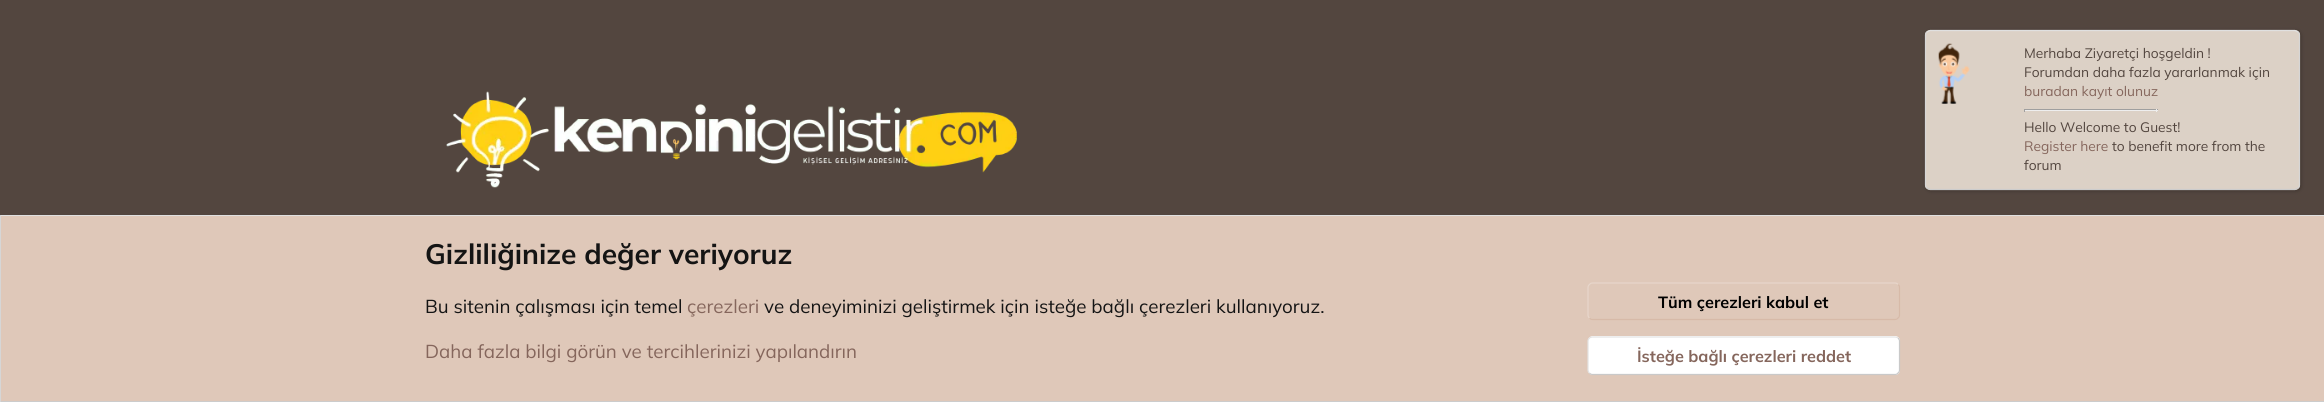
#include <cairo/cairo.h>
#include <math.h>
#include <stddef.h>

static cairo_t *cr;

static void use_color(int r, int g, int b) {
  cairo_set_source_rgb(cr, r / 255.0, g / 255.0, b / 255.0);
}

static void text(double x, double y, const char *s, const char *family, double size, int italic, int bold, int r, int g, int b) {
  cairo_select_font_face(cr, family, italic ? CAIRO_FONT_SLANT_ITALIC : CAIRO_FONT_SLANT_NORMAL,
    bold ? CAIRO_FONT_WEIGHT_BOLD : CAIRO_FONT_WEIGHT_NORMAL);
  cairo_set_font_size(cr, size);
  use_color(r, g, b);
  cairo_move_to(cr, x, y);
  cairo_show_text(cr, s);
}

static void box(double x, double y, double w, double h, int r, int g, int b) {
  use_color(r, g, b);
  cairo_rectangle(cr, x, y, w, h);
  cairo_fill(cr);
}

static void round_rect(double x, double y, double w, double h, double r) {
  cairo_new_sub_path(cr);
  cairo_arc(cr, x + w - r, y + h - r, r, 0, M_PI / 2);
  cairo_arc(cr, x + r, y + h - r, r, M_PI / 2, M_PI);
  cairo_arc(cr, x + r, y + r, r, M_PI, 1.5 * M_PI);
  cairo_arc(cr, x + w - r, y + r, r, 1.5 * M_PI, 2 * M_PI);
  cairo_close_path(cr);
}

static void shadow(double x, double y, double w, double h, double r, double blur, double alpha) {
  cairo_push_group_with_content(cr, CAIRO_CONTENT_ALPHA);
  cairo_set_operator(cr, CAIRO_OPERATOR_SOURCE);
  for (int i = 15; i >= -15 && fmin(w, h) + blur * i / 3 > 0; i -= 2) {
    double e = blur * i / 6;
    cairo_set_source_rgba(cr, 0, 0, 0, alpha * erfc((i - 1) / 8.5) / 2);
    round_rect(x - e, y - e, w + 2 * e, h + 2 * e, fmax(0, fmin(r + e + blur * .6, fmin(w, h) / 2 + e)));
    cairo_fill(cr);
  }
  cairo_pattern_t *soft = cairo_pop_group(cr);
  cairo_mask(cr, soft);
  cairo_pattern_destroy(soft);
}

static void picture(const char *path, double x, double y, double w, double h) {
  cairo_surface_t *image = cairo_image_surface_create_from_png(path);
  cairo_save(cr);
  cairo_set_source_surface(cr, image, x, y);
  cairo_rectangle(cr, x, y, w, h);
  cairo_fill(cr);
  cairo_restore(cr);
  cairo_surface_destroy(image);
}

static void draw(void) {
  use_color(83, 70, 63);
  cairo_paint(cr);
  cairo_save(cr);
  cairo_set_fill_rule(cr, CAIRO_FILL_RULE_EVEN_ODD);
  cairo_new_path(cr);
  cairo_move_to(cr, 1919, 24);
  cairo_line_to(cr, 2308, 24);
  cairo_line_to(cr, 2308, 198);
  cairo_line_to(cr, 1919, 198);
  cairo_close_path(cr);
  cairo_move_to(cr, 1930, 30);
  cairo_line_to(cr, 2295, 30);
  cairo_curve_to(cr, 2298, 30, 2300, 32, 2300, 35);
  cairo_line_to(cr, 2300, 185);
  cairo_curve_to(cr, 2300, 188, 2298, 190, 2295, 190);
  cairo_line_to(cr, 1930, 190);
  cairo_curve_to(cr, 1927, 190, 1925, 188, 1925, 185);
  cairo_line_to(cr, 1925, 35);
  cairo_curve_to(cr, 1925, 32, 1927, 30, 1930, 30);
  cairo_close_path(cr);
  cairo_clip(cr);
  use_color(0, 0, 0);
  shadow(1926, 31, 375, 160, 5, 2, 0.25);
  cairo_restore(cr);
  cairo_set_source_rgba(cr, 0.996, 0.957, 0.906, 0.8);
  round_rect(1925, 30, 375, 160, 5);
  cairo_fill(cr);
  cairo_new_path(cr);
  cairo_move_to(cr, 1927, 32);
  cairo_line_to(cr, 1930, 30.5);
  cairo_line_to(cr, 2295, 30.5);
  cairo_line_to(cr, 2298, 32);
  use_color(224, 224, 224);
  cairo_set_line_width(cr, 1.2);
  cairo_stroke(cr);
  cairo_new_path(cr);
  cairo_move_to(cr, 2298, 32);
  cairo_curve_to(cr, 2299, 32.5, 2299.5, 34, 2299.5, 35);
  cairo_line_to(cr, 2299.5, 185);
  cairo_curve_to(cr, 2299.5, 186, 2299, 187.5, 2298, 188);
  use_color(214, 214, 214);
  cairo_stroke(cr);
  cairo_new_path(cr);
  cairo_move_to(cr, 2298, 188);
  cairo_line_to(cr, 2295, 189.5);
  cairo_line_to(cr, 1930, 189.5);
  cairo_line_to(cr, 1927, 188);
  use_color(204, 204, 204);
  cairo_stroke(cr);
  cairo_new_path(cr);
  cairo_move_to(cr, 1927, 188);
  cairo_curve_to(cr, 1926, 187.5, 1925.5, 186, 1925.5, 185);
  cairo_line_to(cr, 1925.5, 35);
  cairo_curve_to(cr, 1925.5, 34, 1926, 32.5, 1927, 32);
  use_color(214, 214, 214);
  cairo_stroke(cr);
  picture("img_01.png", 1938, 43, 32, 61);
  box(2024, 109, 134, 1, 159, 159, 159);
  box(2156, 109, 1, 3, 238, 238, 238);
  box(2024, 110, 134, 1, 238, 238, 238);
  box(2024, 109, 1, 3, 159, 159, 159);
  box(1, 216, 2323, 185, 223, 200, 185);
  box(0, 215, 2324, 1, 224, 224, 224);
  box(0, 401, 2324, 1, 204, 204, 204);
  box(0, 215, 1, 187, 214, 214, 214);
  cairo_new_path(cr);
  cairo_move_to(cr, 1898, 284.5);
  cairo_curve_to(cr, 1899, 285, 1899.5, 286.5, 1899.5, 287.5);
  cairo_line_to(cr, 1899.5, 315);
  cairo_curve_to(cr, 1899.5, 316, 1899, 317.5, 1898, 318);
  cairo_curve_to(cr, 1897.5, 319, 1896, 319.5, 1895, 319.5);
  cairo_line_to(cr, 1592.5, 319.5);
  cairo_curve_to(cr, 1591.5, 319.5, 1590, 319, 1589.5, 318);
  use_color(215, 186, 168);
  cairo_stroke(cr);
  cairo_new_path(cr);
  cairo_move_to(cr, 1589.5, 318);
  cairo_curve_to(cr, 1588.5, 317.5, 1588, 316, 1588, 315);
  cairo_line_to(cr, 1588, 287.5);
  cairo_curve_to(cr, 1588, 286.5, 1588.5, 285, 1589.5, 284.5);
  cairo_curve_to(cr, 1590, 283.5, 1591.5, 283, 1592.5, 283);
  cairo_line_to(cr, 1895, 283);
  cairo_curve_to(cr, 1896, 283, 1897.5, 283.5, 1898, 284.5);
  use_color(231, 214, 203);
  cairo_stroke(cr);
  use_color(255, 255, 255);
  round_rect(1588, 336, 312, 39, 5);
  cairo_fill(cr);
  cairo_new_path(cr);
  cairo_move_to(cr, 1898, 338);
  cairo_curve_to(cr, 1899, 339, 1899.5, 340, 1899.5, 341);
  cairo_line_to(cr, 1899.5, 370);
  cairo_curve_to(cr, 1899.5, 371, 1899, 372.5, 1898, 373);
  cairo_curve_to(cr, 1897.5, 374, 1896, 374.5, 1895, 374.5);
  cairo_line_to(cr, 1592.5, 374.5);
  cairo_curve_to(cr, 1591.5, 374.5, 1590, 374, 1589.5, 373);
  use_color(201, 201, 201);
  cairo_stroke(cr);
  cairo_new_path(cr);
  cairo_move_to(cr, 1589.5, 373);
  cairo_curve_to(cr, 1588.5, 372.5, 1588, 371, 1588, 370);
  cairo_line_to(cr, 1588, 341);
  cairo_curve_to(cr, 1588, 340, 1588.5, 339, 1589.5, 338);
  cairo_curve_to(cr, 1590, 337.5, 1591.5, 337, 1592.5, 337);
  cairo_line_to(cr, 1895, 337);
  cairo_curve_to(cr, 1896, 337, 1897.5, 337.5, 1898, 338);
  use_color(227, 227, 227);
  cairo_stroke(cr);
  picture("img_02.png", 446, 91, 571, 97);
  text(2024, 58, "Merhaba Ziyaretçi hoşgeldin !", "Mulish", 13.75, 0, 0, 83, 70, 63);
  text(2024, 77, "Forumdan daha fazla yararlanmak için", "Mulish", 13.75, 0, 0, 83, 70, 63);
  text(2024, 96, "buradan kayıt olunuz", "Mulish", 13.75, 0, 0, 133, 102, 92);
  text(2024, 132, "Hello Welcome to Guest!", "Mulish", 13.75, 0, 0, 83, 70, 63);
  text(2024, 151, "Register here", "Mulish", 13.75, 0, 0, 133, 102, 92);
  text(2112, 151, "to benefit more from the", "Mulish", 13.75, 0, 0, 83, 70, 63);
  text(2024, 170, "forum", "Mulish", 13.75, 0, 0, 83, 70, 63);
  text(425, 264, "Gizliliğinize değer veriyoruz", "Mulish", 28.1, 0, 1, 20, 20, 20);
  text(425, 313, "Bu sitenin çalışması için temel", "Mulish", 18.75, 0, 0, 20, 20, 20);
  text(687, 313, "çerezleri", "Mulish", 18.75, 0, 0, 133, 102, 92);
  text(764, 313, "ve deneyiminizi geliştirmek için isteğe bağlı çerezleri kullanıyoruz.", "Mulish", 18.75, 0, 0, 20, 20, 20);
  text(425, 358, "Daha fazla bilgi görün ve tercihlerinizi yapılandırın", "Mulish", 18.75, 0, 0, 133, 102, 92);
  text(1658, 308, "Tüm çerezleri kabul et", "Mulish", 16.25, 0, 1, 0, 0, 0);
  text(1637, 362, "İsteğe bağlı çerezleri reddet", "Mulish", 16.25, 0, 1, 133, 102, 92);
}

int main(void) {
  cairo_surface_t *surface = cairo_image_surface_create(CAIRO_FORMAT_RGB24, 2324, 402);
  cr = cairo_create(surface);
  cairo_font_options_t *options = cairo_font_options_create();
  cairo_font_options_set_hint_metrics(options, CAIRO_HINT_METRICS_OFF);
  cairo_font_options_set_hint_style(options, CAIRO_HINT_STYLE_NONE);
  cairo_set_font_options(cr, options);
  cairo_set_miter_limit(cr, 4);
  draw();
  cairo_surface_write_to_png(surface, "out.png");
  cairo_font_options_destroy(options);
  cairo_destroy(cr);
  cairo_surface_destroy(surface);
  return 0;
}
